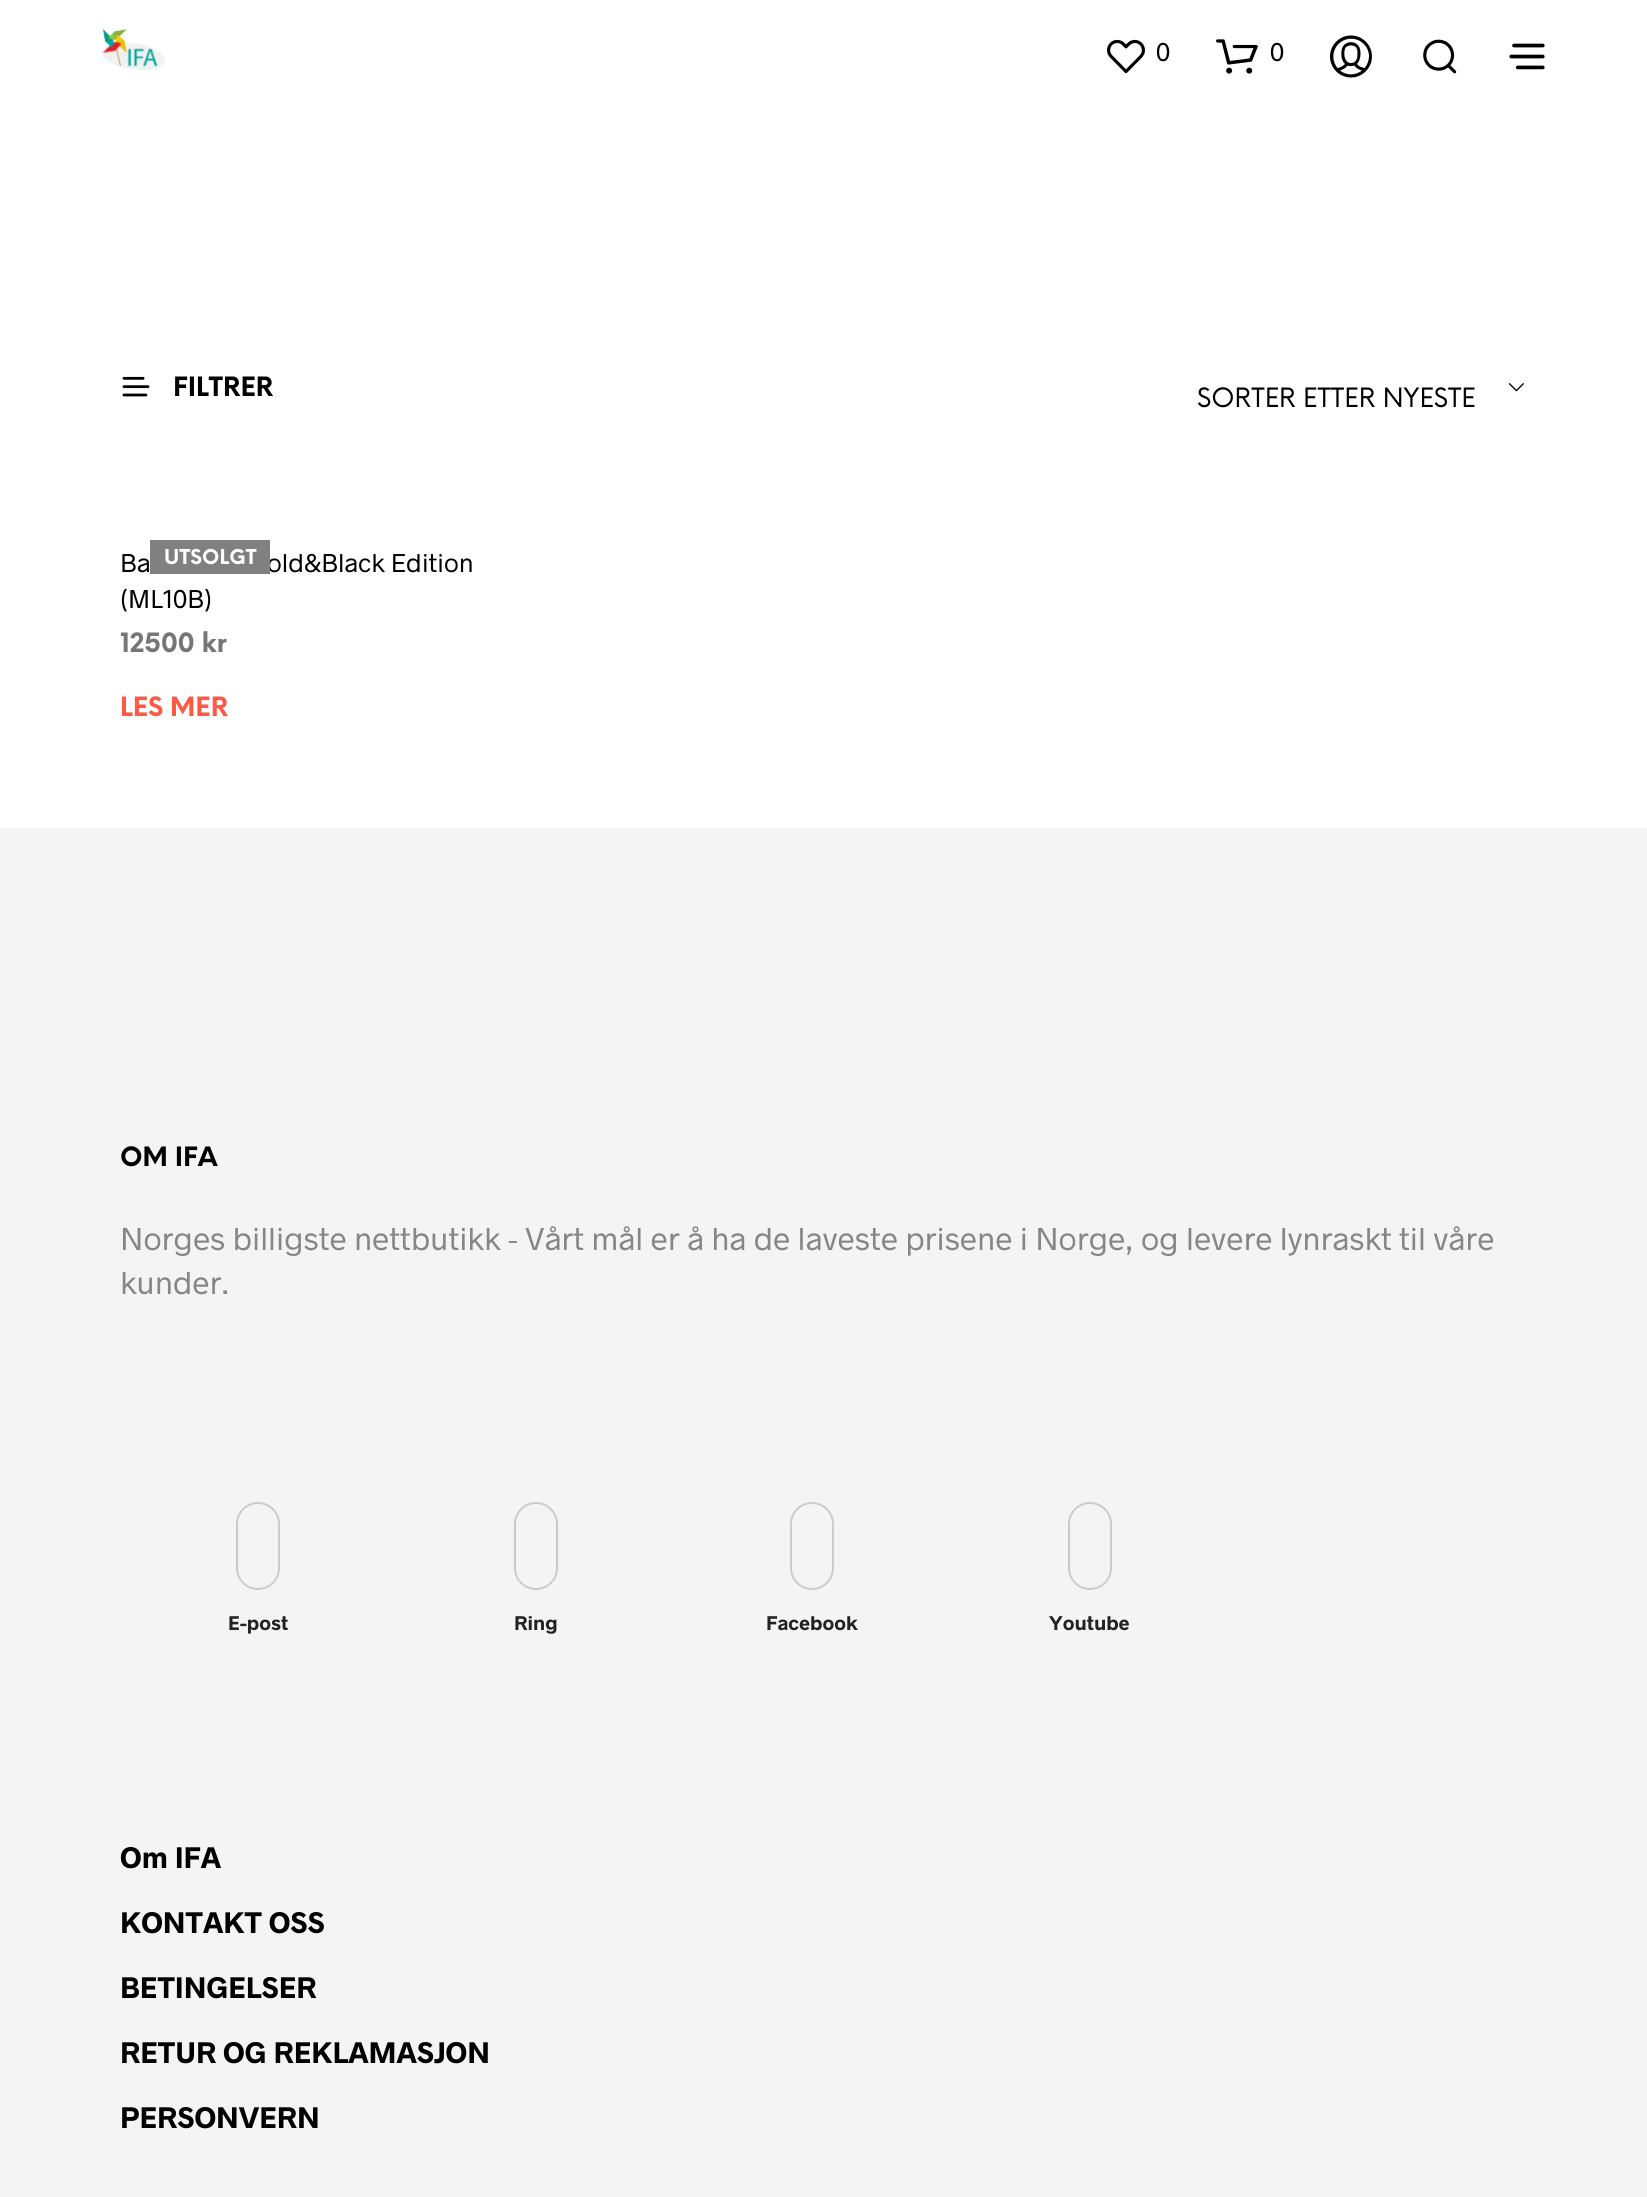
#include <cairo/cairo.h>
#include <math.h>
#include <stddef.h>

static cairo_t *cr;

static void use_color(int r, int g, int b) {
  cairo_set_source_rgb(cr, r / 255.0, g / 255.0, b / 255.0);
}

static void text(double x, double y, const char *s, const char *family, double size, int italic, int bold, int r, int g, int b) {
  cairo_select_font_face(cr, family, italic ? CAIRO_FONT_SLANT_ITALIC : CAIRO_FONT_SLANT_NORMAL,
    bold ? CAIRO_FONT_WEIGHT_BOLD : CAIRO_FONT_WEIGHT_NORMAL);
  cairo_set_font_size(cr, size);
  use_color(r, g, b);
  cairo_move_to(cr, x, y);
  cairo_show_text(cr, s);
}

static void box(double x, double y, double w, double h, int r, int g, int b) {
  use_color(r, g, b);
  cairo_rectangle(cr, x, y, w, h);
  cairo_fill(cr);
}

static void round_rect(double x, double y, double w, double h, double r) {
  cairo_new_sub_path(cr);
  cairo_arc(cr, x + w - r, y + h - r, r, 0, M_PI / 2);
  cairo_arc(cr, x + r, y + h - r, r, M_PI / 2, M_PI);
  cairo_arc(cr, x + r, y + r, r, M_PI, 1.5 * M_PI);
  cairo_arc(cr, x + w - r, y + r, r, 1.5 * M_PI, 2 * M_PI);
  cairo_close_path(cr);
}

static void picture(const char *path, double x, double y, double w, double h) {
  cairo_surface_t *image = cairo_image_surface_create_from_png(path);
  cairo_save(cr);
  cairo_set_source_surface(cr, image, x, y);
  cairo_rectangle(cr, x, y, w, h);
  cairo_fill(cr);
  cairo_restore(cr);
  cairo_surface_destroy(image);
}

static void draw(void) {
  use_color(255, 255, 255);
  cairo_paint(cr);
  picture("img_01.png", 102, 29, 64, 42);
  picture("img_02.png", 1107, 39, 38, 35);
  picture("img_03.png", 1216, 39, 42, 35);
  picture("img_04.png", 1330, 35, 42, 43);
  picture("img_05.png", 1423, 39, 34, 35);
  picture("img_06.png", 1509, 43, 36, 27);
  picture("img_07.png", 122, 376, 28, 21);
  picture("img_08.png", 1508, 383, 16, 9);
  box(0, 828, 1647, 1369, 244, 244, 244);
  round_rect(237, 1503, 42, 86, 21);
  use_color(204, 204, 204);
  cairo_stroke(cr);
  round_rect(515, 1503, 42, 86, 21);
  cairo_stroke(cr);
  round_rect(791, 1503, 42, 86, 21);
  cairo_stroke(cr);
  round_rect(1069, 1503, 42, 86, 21);
  cairo_stroke(cr);
  text(1156, 61, "0", "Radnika", 26, 0, 0, 0, 0, 0);
  text(1270, 61, "0", "Radnika", 26, 0, 0, 0, 0, 0);
  text(173, 396, "FILTRER", "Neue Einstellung", 26, 0, 1, 0, 0, 0);
  text(1197, 407, "SORTER ETTER NYESTE", "Neue Einstellung", 26, 0, 0, 0, 0, 0);
  text(120, 572, "Ba", "Radnika", 26, 0, 0, 0, 0, 0);
  text(267, 572, "old&Black Edition", "Radnika", 26, 0, 0, 0, 0, 0);
  box(150, 540, 120, 34, 128, 128, 128);
  text(164, 564, "UTSOLGT", "Neue Einstellung", 20, 0, 1, 255, 255, 255);
  text(120, 608, "(ML10B)", "Radnika", 26, 0, 0, 0, 0, 0);
  text(120, 652, "12500 kr", "Neue Einstellung", 26, 0, 1, 118, 118, 118);
  text(120, 716, "LES MER", "Neue Einstellung", 26, 0, 1, 255, 89, 67);
  text(120, 1166, "OM IFA", "Neue Einstellung", 26, 0, 1, 0, 0, 0);
  text(120, 1250, "Norges billigste nettbutikk - Vårt mål er å ha de laveste prisene i Norge, og levere lynraskt til våre", "Radnika", 32, 0, 0, 134, 134, 134);
  text(120, 1294, "kunder.", "Radnika", 32, 0, 0, 134, 134, 134);
  text(228, 1630, "E-post", "Radnika", 20, 0, 1, 34, 34, 34);
  text(514, 1630, "Ring", "Radnika", 20, 0, 1, 34, 34, 34);
  text(766, 1630, "Facebook", "Radnika", 20, 0, 1, 34, 34, 34);
  text(1049, 1630, "Youtube", "Radnika", 20, 0, 1, 34, 34, 34);
  text(120, 1868, "Om IFA", "Radnika", 30, 0, 1, 0, 0, 0);
  text(120, 1933, "KONTAKT OSS", "Radnika", 30, 0, 1, 0, 0, 0);
  text(120, 1998, "BETINGELSER", "Radnika", 30, 0, 1, 0, 0, 0);
  text(120, 2063, "RETUR OG REKLAMASJON", "Radnika", 30, 0, 1, 0, 0, 0);
  text(120, 2128, "PERSONVERN", "Radnika", 30, 0, 1, 0, 0, 0);
}

int main(void) {
  cairo_surface_t *surface = cairo_image_surface_create(CAIRO_FORMAT_RGB24, 1647, 2197);
  cr = cairo_create(surface);
  cairo_font_options_t *options = cairo_font_options_create();
  cairo_font_options_set_hint_metrics(options, CAIRO_HINT_METRICS_OFF);
  cairo_font_options_set_hint_style(options, CAIRO_HINT_STYLE_NONE);
  cairo_set_font_options(cr, options);
  cairo_set_miter_limit(cr, 4);
  draw();
  cairo_surface_write_to_png(surface, "out.png");
  cairo_font_options_destroy(options);
  cairo_destroy(cr);
  cairo_surface_destroy(surface);
  return 0;
}
